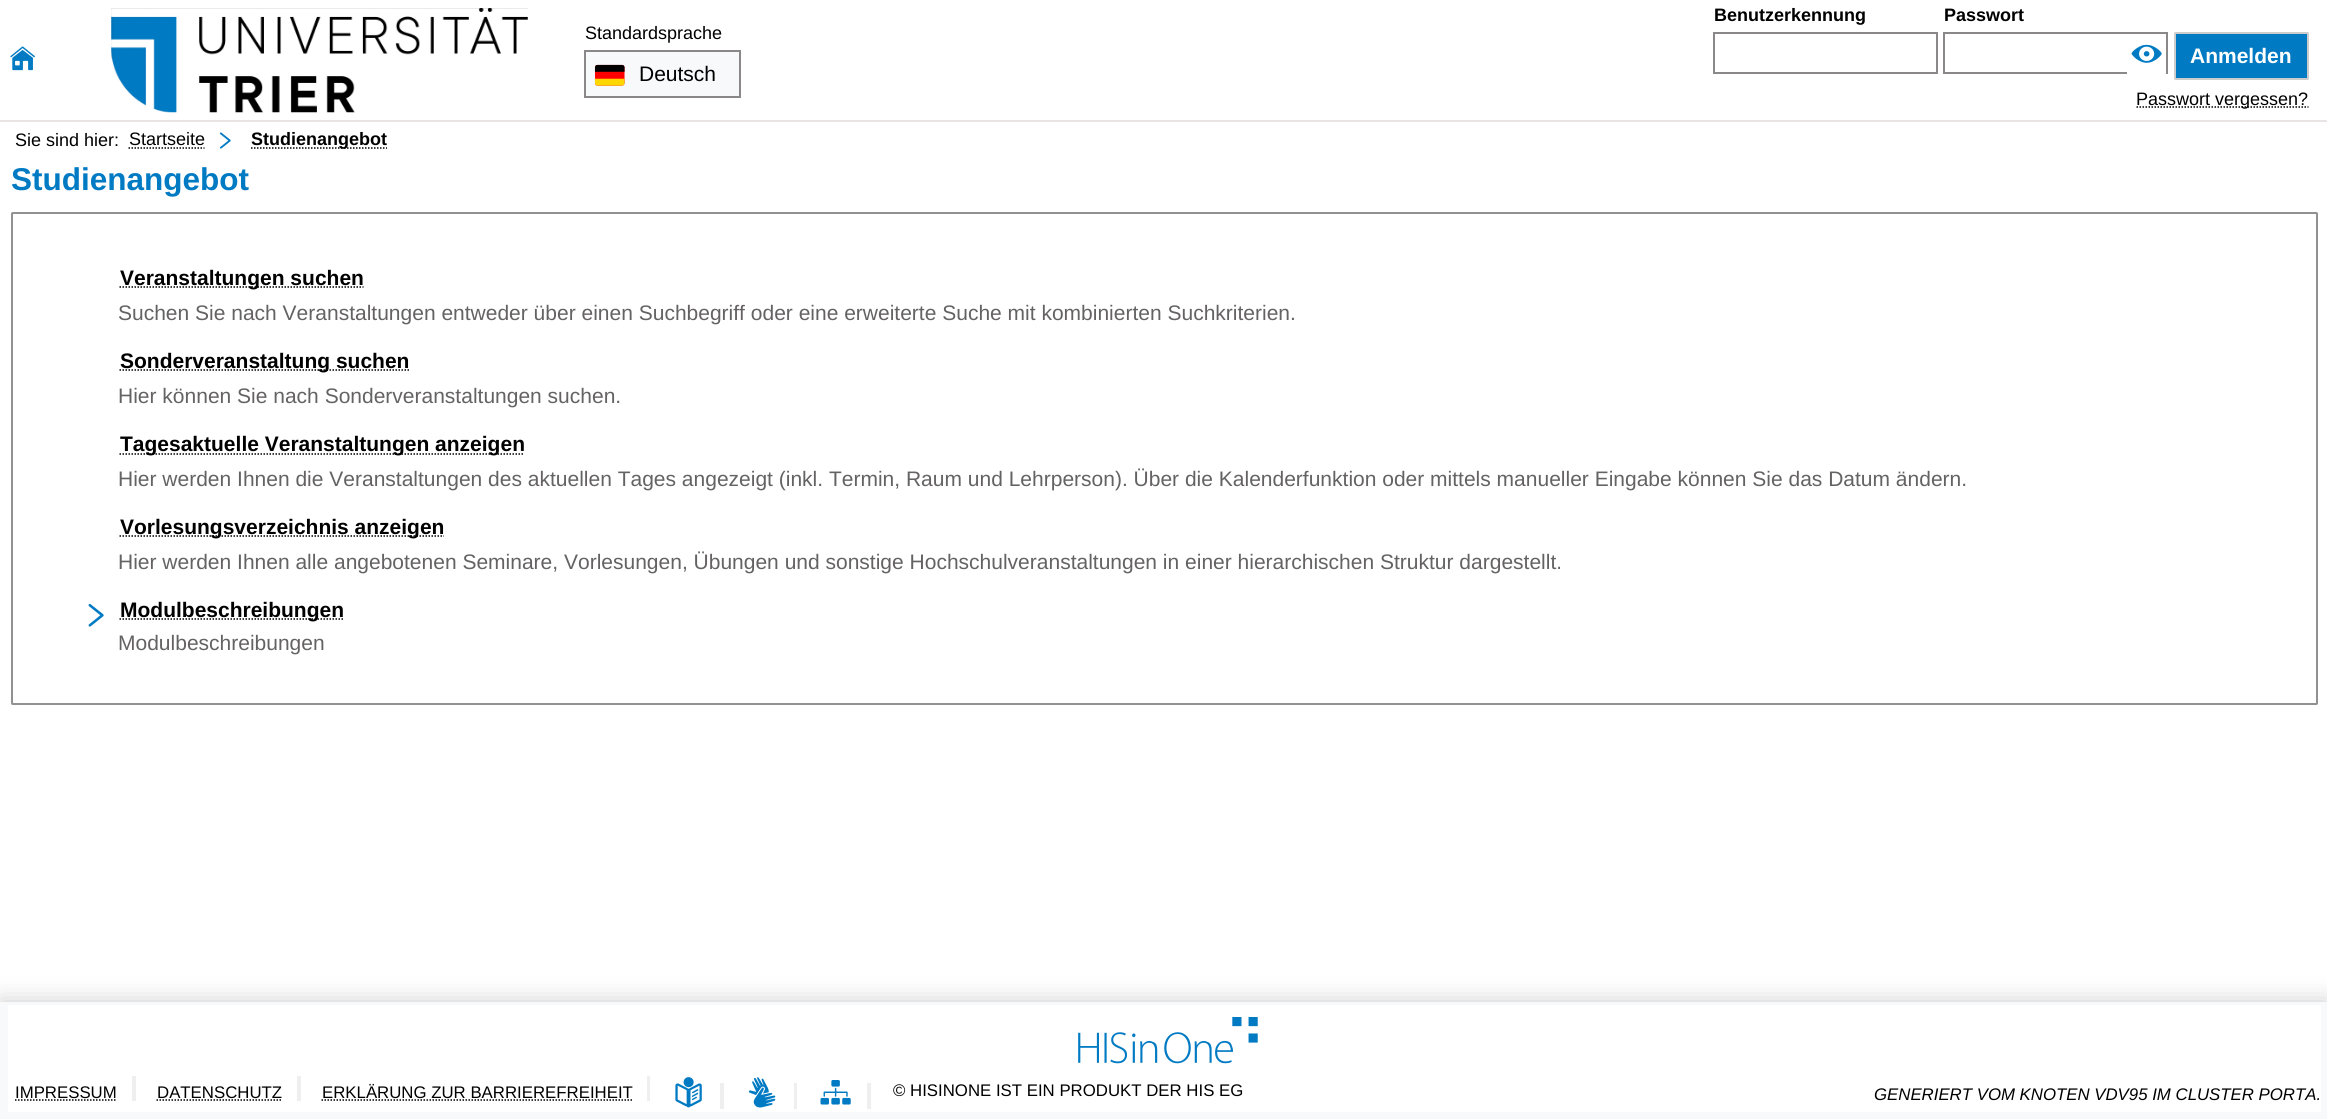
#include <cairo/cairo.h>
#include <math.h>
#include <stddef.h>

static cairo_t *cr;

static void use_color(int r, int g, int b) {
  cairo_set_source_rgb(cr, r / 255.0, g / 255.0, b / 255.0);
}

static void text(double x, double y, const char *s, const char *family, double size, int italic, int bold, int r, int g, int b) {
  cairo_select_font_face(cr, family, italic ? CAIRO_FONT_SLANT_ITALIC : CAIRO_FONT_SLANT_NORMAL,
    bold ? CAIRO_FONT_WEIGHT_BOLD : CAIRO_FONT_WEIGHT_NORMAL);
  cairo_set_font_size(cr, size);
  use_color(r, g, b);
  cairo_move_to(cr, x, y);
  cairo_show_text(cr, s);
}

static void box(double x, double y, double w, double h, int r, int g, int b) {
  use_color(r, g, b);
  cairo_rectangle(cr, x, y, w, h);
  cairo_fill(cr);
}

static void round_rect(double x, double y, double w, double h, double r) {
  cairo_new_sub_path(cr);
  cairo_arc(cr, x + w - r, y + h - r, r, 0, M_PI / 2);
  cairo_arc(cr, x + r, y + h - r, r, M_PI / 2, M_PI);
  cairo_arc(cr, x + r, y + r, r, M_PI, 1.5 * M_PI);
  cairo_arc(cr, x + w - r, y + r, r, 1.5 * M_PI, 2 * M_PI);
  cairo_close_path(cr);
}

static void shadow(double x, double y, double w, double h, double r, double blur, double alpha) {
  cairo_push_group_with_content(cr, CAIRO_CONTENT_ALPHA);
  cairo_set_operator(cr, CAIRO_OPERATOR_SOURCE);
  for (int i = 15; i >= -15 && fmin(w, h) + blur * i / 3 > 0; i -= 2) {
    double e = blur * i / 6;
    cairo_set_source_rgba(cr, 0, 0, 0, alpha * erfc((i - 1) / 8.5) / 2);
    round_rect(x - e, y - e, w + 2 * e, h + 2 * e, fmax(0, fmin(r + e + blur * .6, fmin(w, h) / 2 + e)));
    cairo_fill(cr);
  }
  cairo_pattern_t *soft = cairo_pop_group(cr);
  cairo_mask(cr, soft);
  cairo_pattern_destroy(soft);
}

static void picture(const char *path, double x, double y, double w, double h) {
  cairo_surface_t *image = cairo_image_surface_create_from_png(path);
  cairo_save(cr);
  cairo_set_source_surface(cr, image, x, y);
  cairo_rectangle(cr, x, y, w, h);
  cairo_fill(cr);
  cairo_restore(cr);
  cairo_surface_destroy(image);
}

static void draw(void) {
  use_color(255, 255, 255);
  cairo_paint(cr);
  box(0, 120, 2327, 2, 234, 229, 229);
  picture("img_01.png", 10, 46, 25, 25);
  picture("img_02.png", 111, 8, 417, 105);
  box(586, 52, 153, 44, 247, 249, 250);
  picture("img_03.png", 594, 64, 31, 22);
  cairo_rectangle(cr, 585, 51, 155, 46);
  use_color(138, 136, 136);
  cairo_stroke(cr);
  cairo_rectangle(cr, 1714, 33, 223, 40);
  cairo_stroke(cr);
  cairo_rectangle(cr, 1944, 33, 223, 40);
  cairo_stroke(cr);
  use_color(255, 255, 255);
  round_rect(2127, 35, 39, 40, 1.5);
  cairo_fill(cr);
  picture("img_04.png", 2131, 44, 31, 19);
  use_color(0, 122, 195);
  round_rect(2175, 33, 133, 46, 0.5);
  cairo_fill_preserve(cr);
  use_color(204, 204, 204);
  cairo_stroke(cr);
  cairo_new_path(cr);
  cairo_move_to(cr, 2136.5, 107);
  cairo_line_to(cr, 2308.5, 107);
  use_color(0, 0, 0);
  cairo_set_line_width(cr, 1.5);
  cairo_set_dash(cr, (double[]){1.5, 1.5}, 2, 0);
  cairo_stroke(cr);
  cairo_new_path(cr);
  cairo_move_to(cr, 128.5, 148);
  cairo_line_to(cr, 204.5, 148);
  cairo_stroke(cr);
  picture("img_05.png", 219, 132, 12, 17);
  cairo_new_path(cr);
  cairo_move_to(cr, 251, 148);
  cairo_line_to(cr, 387, 148);
  cairo_stroke(cr);
  round_rect(12, 213, 2305, 491, 0.5);
  use_color(145, 145, 145);
  cairo_set_line_width(cr, 2);
  cairo_set_dash(cr, NULL, 0, 0);
  cairo_stroke(cr);
  cairo_new_path(cr);
  cairo_move_to(cr, 119.5, 287);
  cairo_line_to(cr, 363.5, 287);
  use_color(0, 0, 0);
  cairo_set_line_width(cr, 1.5);
  cairo_set_dash(cr, (double[]){1.5, 1.5}, 2, 0);
  cairo_stroke(cr);
  cairo_new_path(cr);
  cairo_move_to(cr, 119.5, 370);
  cairo_line_to(cr, 409, 370);
  cairo_stroke(cr);
  cairo_new_path(cr);
  cairo_move_to(cr, 119.5, 454);
  cairo_line_to(cr, 524.5, 454);
  cairo_stroke(cr);
  cairo_new_path(cr);
  cairo_move_to(cr, 119.5, 536);
  cairo_line_to(cr, 444, 536);
  cairo_stroke(cr);
  picture("img_06.png", 88, 603, 16, 24);
  cairo_new_path(cr);
  cairo_move_to(cr, 119.5, 619);
  cairo_line_to(cr, 343.5, 619);
  cairo_stroke(cr);
  use_color(204, 204, 204);
  shadow(0, 1002, 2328, 117, 0, 12, 1);
  box(0, 1002, 2327, 117, 247, 249, 250);
  box(8, 1005, 2313, 107, 255, 255, 255);
  picture("img_07.png", 1078, 1017, 180, 47);
  cairo_new_path(cr);
  cairo_move_to(cr, 15, 1100);
  cairo_line_to(cr, 116.5, 1100);
  use_color(0, 0, 0);
  cairo_stroke(cr);
  box(132, 1076, 4, 25, 239, 239, 239);
  cairo_new_path(cr);
  cairo_move_to(cr, 156.5, 1100);
  cairo_line_to(cr, 281.5, 1100);
  use_color(0, 0, 0);
  cairo_stroke(cr);
  box(297, 1076, 4, 25, 239, 239, 239);
  cairo_new_path(cr);
  cairo_move_to(cr, 321.5, 1100);
  cairo_line_to(cr, 632, 1100);
  use_color(0, 0, 0);
  cairo_stroke(cr);
  box(647, 1076, 3, 25, 239, 239, 239);
  picture("img_08.png", 675, 1077, 27, 31);
  box(720, 1083, 4, 26, 239, 239, 239);
  picture("img_09.png", 748, 1077, 28, 31);
  box(794, 1083, 3, 26, 239, 239, 239);
  picture("img_10.png", 820, 1080, 31, 25);
  box(867, 1083, 4, 26, 239, 239, 239);
  text(585, 39, "Standardsprache", "Liberation Sans", 18, 0, 0, 0, 0, 0);
  text(639, 81, "Deutsch", "Liberation Sans", 21, 0, 0, 0, 0, 0);
  text(1714, 21, "Benutzerkennung", "Liberation Sans", 18, 0, 1, 0, 0, 0);
  text(1944, 21, "Passwort", "Liberation Sans", 18, 0, 1, 0, 0, 0);
  text(2190, 63, "Anmelden", "Liberation Sans", 21, 0, 1, 255, 255, 255);
  text(2136, 105, "Passwort vergessen?", "Liberation Sans", 18, 0, 0, 0, 0, 0);
  text(15, 146, "Sie sind hier:", "Liberation Sans", 18, 0, 0, 0, 0, 0);
  text(129, 145, "Startseite", "Liberation Sans", 18, 0, 0, 0, 0, 0);
  text(251, 145, "Studienangebot", "Liberation Sans", 18, 0, 1, 0, 0, 0);
  text(11, 190, "Studienangebot", "Liberation Sans", 31.5, 0, 1, 0, 122, 195);
  text(120, 285, "Veranstaltungen suchen", "Liberation Sans", 21, 0, 1, 0, 0, 0);
  text(118, 320, "Suchen Sie nach Veranstaltungen entweder über einen Suchbegriff oder eine erweiterte Suche mit kombinierten Suchkriterien.", "Liberation Sans", 21, 0, 0, 100, 98, 98);
  text(120, 368, "Sonderveranstaltung suchen", "Liberation Sans", 21, 0, 1, 0, 0, 0);
  text(118, 403, "Hier können Sie nach Sonderveranstaltungen suchen.", "Liberation Sans", 21, 0, 0, 100, 98, 98);
  text(120, 451, "Tagesaktuelle Veranstaltungen anzeigen", "Liberation Sans", 21, 0, 1, 0, 0, 0);
  text(118, 486, "Hier werden Ihnen die Veranstaltungen des aktuellen Tages angezeigt (inkl. Termin, Raum und Lehrperson). Über die Kalenderfunktion oder mittels manueller Eingabe können Sie das Datum ändern.", "Liberation Sans", 21, 0, 0, 100, 98, 98);
  text(120, 534, "Vorlesungsverzeichnis anzeigen", "Liberation Sans", 21, 0, 1, 0, 0, 0);
  text(118, 569, "Hier werden Ihnen alle angebotenen Seminare, Vorlesungen, Übungen und sonstige Hochschulveranstaltungen in einer hierarchischen Struktur dargestellt.", "Liberation Sans", 21, 0, 0, 100, 98, 98);
  text(120, 617, "Modulbeschreibungen", "Liberation Sans", 21, 0, 1, 0, 0, 0);
  text(118, 650, "Modulbeschreibungen", "Liberation Sans", 21, 0, 0, 100, 98, 98);
  text(15, 1098, "IMPRESSUM", "Liberation Sans", 16.8, 0, 0, 0, 0, 0);
  text(157, 1098, "DATENSCHUTZ", "Liberation Sans", 16.8, 0, 0, 0, 0, 0);
  text(322, 1098, "ERKLÄRUNG ZUR BARRIEREFREIHEIT", "Liberation Sans", 16.8, 0, 0, 0, 0, 0);
  text(893, 1096, "© HISINONE IST EIN PRODUKT DER HIS EG", "Liberation Sans", 16.8, 0, 0, 0, 0, 0);
  text(1874, 1100, "GENERIERT VOM KNOTEN VDV95 IM CLUSTER PORTA.", "Liberation Sans", 16.8, 1, 0, 0, 0, 0);
}

int main(void) {
  cairo_surface_t *surface = cairo_image_surface_create(CAIRO_FORMAT_RGB24, 2327, 1119);
  cr = cairo_create(surface);
  cairo_font_options_t *options = cairo_font_options_create();
  cairo_font_options_set_hint_metrics(options, CAIRO_HINT_METRICS_OFF);
  cairo_font_options_set_hint_style(options, CAIRO_HINT_STYLE_NONE);
  cairo_set_font_options(cr, options);
  cairo_set_miter_limit(cr, 4);
  draw();
  cairo_surface_write_to_png(surface, "out.png");
  cairo_font_options_destroy(options);
  cairo_destroy(cr);
  cairo_surface_destroy(surface);
  return 0;
}
